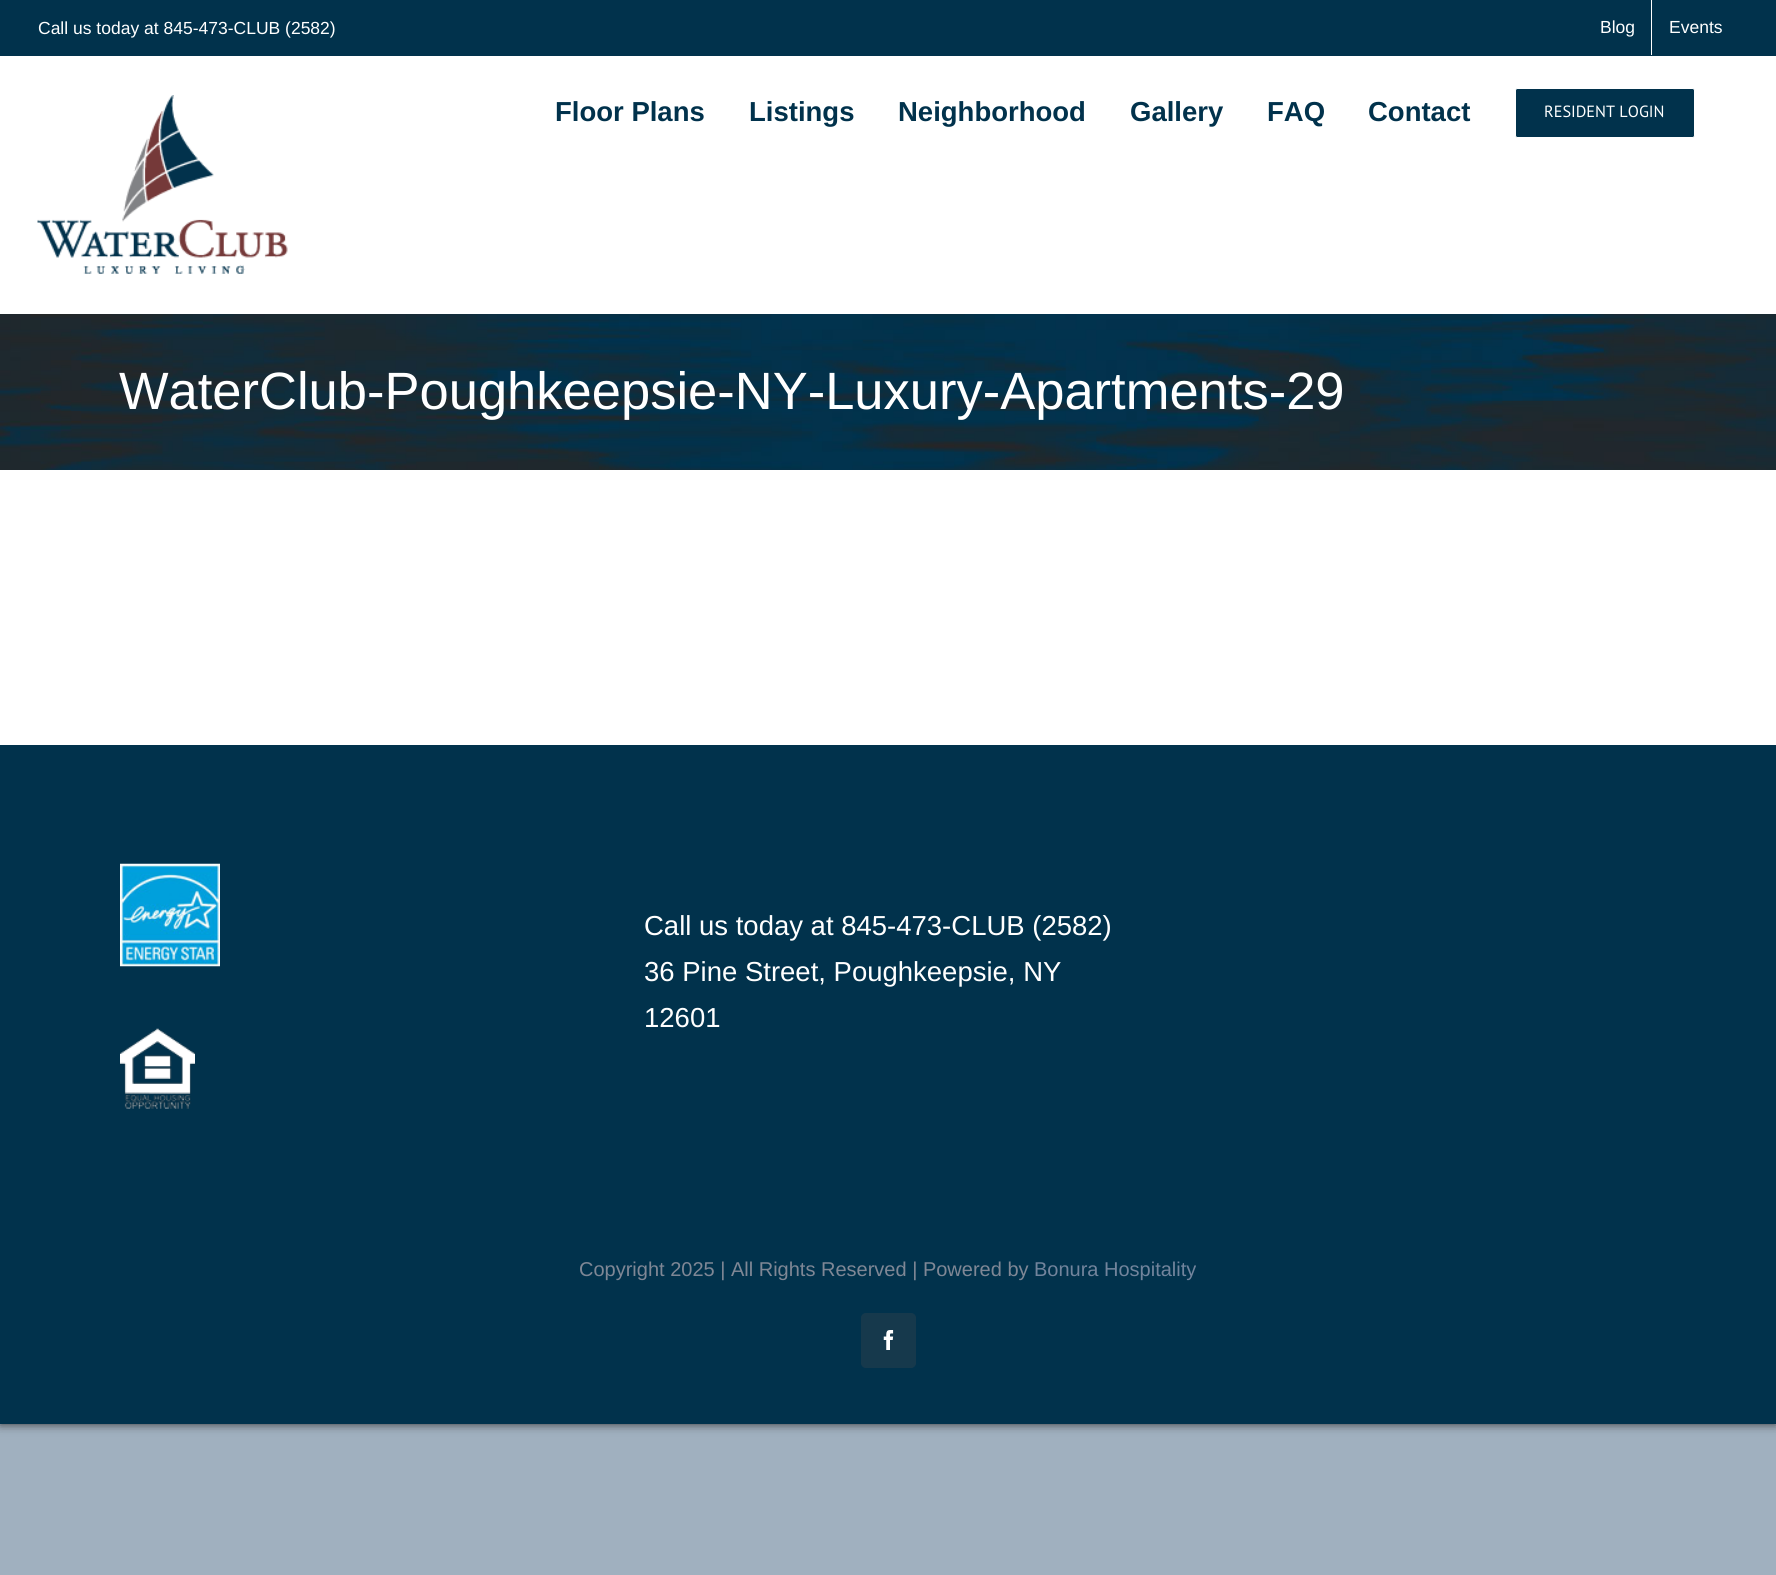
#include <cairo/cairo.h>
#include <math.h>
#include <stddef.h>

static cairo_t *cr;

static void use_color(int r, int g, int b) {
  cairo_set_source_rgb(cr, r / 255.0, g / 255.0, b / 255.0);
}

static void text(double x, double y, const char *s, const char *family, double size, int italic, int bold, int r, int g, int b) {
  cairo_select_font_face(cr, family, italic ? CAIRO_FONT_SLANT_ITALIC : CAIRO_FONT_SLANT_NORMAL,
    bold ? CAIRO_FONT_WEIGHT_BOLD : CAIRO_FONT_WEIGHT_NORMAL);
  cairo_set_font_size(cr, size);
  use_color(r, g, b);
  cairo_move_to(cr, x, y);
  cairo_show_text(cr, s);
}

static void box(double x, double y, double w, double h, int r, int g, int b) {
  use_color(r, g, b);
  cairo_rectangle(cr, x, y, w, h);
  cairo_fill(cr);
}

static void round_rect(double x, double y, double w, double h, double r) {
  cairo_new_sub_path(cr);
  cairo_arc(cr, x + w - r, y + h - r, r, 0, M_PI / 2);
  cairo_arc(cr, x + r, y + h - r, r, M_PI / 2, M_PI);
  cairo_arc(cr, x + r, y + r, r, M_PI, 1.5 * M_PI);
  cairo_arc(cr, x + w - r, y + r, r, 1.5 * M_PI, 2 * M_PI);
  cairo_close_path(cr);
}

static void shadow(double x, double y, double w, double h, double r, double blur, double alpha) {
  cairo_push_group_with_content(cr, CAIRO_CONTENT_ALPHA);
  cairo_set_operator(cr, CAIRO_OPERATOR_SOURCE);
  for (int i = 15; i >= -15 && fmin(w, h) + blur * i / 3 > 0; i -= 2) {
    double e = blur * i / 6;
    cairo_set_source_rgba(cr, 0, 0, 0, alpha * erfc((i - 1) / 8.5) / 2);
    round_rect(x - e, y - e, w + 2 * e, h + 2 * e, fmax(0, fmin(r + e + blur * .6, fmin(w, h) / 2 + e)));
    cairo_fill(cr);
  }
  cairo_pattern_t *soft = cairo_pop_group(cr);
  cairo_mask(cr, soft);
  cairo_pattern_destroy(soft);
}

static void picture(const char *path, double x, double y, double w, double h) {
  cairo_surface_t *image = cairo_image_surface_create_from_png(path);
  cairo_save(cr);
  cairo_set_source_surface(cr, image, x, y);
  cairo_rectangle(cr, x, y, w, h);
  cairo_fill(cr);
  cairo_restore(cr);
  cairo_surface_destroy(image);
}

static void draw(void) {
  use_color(160, 176, 191);
  cairo_paint(cr);
  use_color(51, 51, 51);
  shadow(0, 0, 1776, 1424, 0, 5, 1);
  box(0, 470, 1776, 275, 255, 255, 255);
  box(0, 0, 1776, 56, 1, 50, 76);
  box(1651, 0, 1, 55, 255, 255, 255);
  box(0, 56, 1776, 258, 255, 255, 255);
  picture("img_01.png", 37, 95, 251, 179);
  use_color(1, 50, 76);
  round_rect(1515.5, 88.5, 179, 49, 2);
  cairo_fill_preserve(cr);
  use_color(255, 255, 255);
  cairo_set_line_width(cr, 1);
  cairo_stroke(cr);
  picture("img_02.png", 0, 314, 1776, 156);
  box(0, 745, 1776, 679, 1, 50, 76);
  picture("img_03.png", 120, 863, 100, 104);
  picture("img_04.png", 120, 1028, 75, 81);
  use_color(22, 57, 76);
  round_rect(861.5, 1313.5, 54, 54, 4.5);
  cairo_fill_preserve(cr);
  cairo_stroke(cr);
  picture("img_05.png", 883, 1330, 11, 20);
  text(38, 34, "Call us today at 845-473-CLUB (2582)", "Liberation Sans", 17.5, 0, 0, 255, 255, 255);
  text(1600, 33, "Blog", "Liberation Sans", 17.5, 0, 0, 255, 255, 255);
  text(1669, 33, "Events", "Liberation Sans", 17.5, 0, 0, 255, 255, 255);
  text(555, 121, "Floor Plans", "Liberation Sans", 27.5, 0, 1, 1, 50, 76);
  text(749, 121, "Listings", "Liberation Sans", 27.5, 0, 1, 1, 50, 76);
  text(898, 121, "Neighborhood", "Liberation Sans", 27.5, 0, 1, 1, 50, 76);
  text(1130, 121, "Gallery", "Liberation Sans", 27.5, 0, 1, 1, 50, 76);
  text(1267, 121, "FAQ", "Liberation Sans", 27.5, 0, 1, 1, 50, 76);
  text(1368, 121, "Contact", "Liberation Sans", 27.5, 0, 1, 1, 50, 76);
  text(1544, 117, "RESIDENT LOGIN", "PT Sans", 16.25, 0, 0, 255, 255, 255);
  text(119, 409, "WaterClub-Poughkeepsie-NY-Luxury-Apartments-29", "Liberation Sans", 52.5, 0, 0, 255, 255, 255);
  text(644, 935, "Call us today at 845-473-CLUB (2582)", "Liberation Sans", 27.5, 0, 0, 255, 255, 255);
  text(644, 981, "36 Pine Street, Poughkeepsie, NY", "Liberation Sans", 27.5, 0, 0, 255, 255, 255);
  text(644, 1027, "12601", "Liberation Sans", 27.5, 0, 0, 255, 255, 255);
  text(579, 1276, "Copyright 2025 | All Rights Reserved | Powered by", "Liberation Sans", 20, 0, 0, 127, 135, 149);
  text(1034, 1276, "Bonura Hospitality", "Liberation Sans", 20, 0, 0, 114, 132, 156);
}

int main(void) {
  cairo_surface_t *surface = cairo_image_surface_create(CAIRO_FORMAT_RGB24, 1776, 1575);
  cr = cairo_create(surface);
  cairo_font_options_t *options = cairo_font_options_create();
  cairo_font_options_set_hint_metrics(options, CAIRO_HINT_METRICS_OFF);
  cairo_font_options_set_hint_style(options, CAIRO_HINT_STYLE_NONE);
  cairo_set_font_options(cr, options);
  cairo_set_miter_limit(cr, 4);
  draw();
  cairo_surface_write_to_png(surface, "out.png");
  cairo_font_options_destroy(options);
  cairo_destroy(cr);
  cairo_surface_destroy(surface);
  return 0;
}
